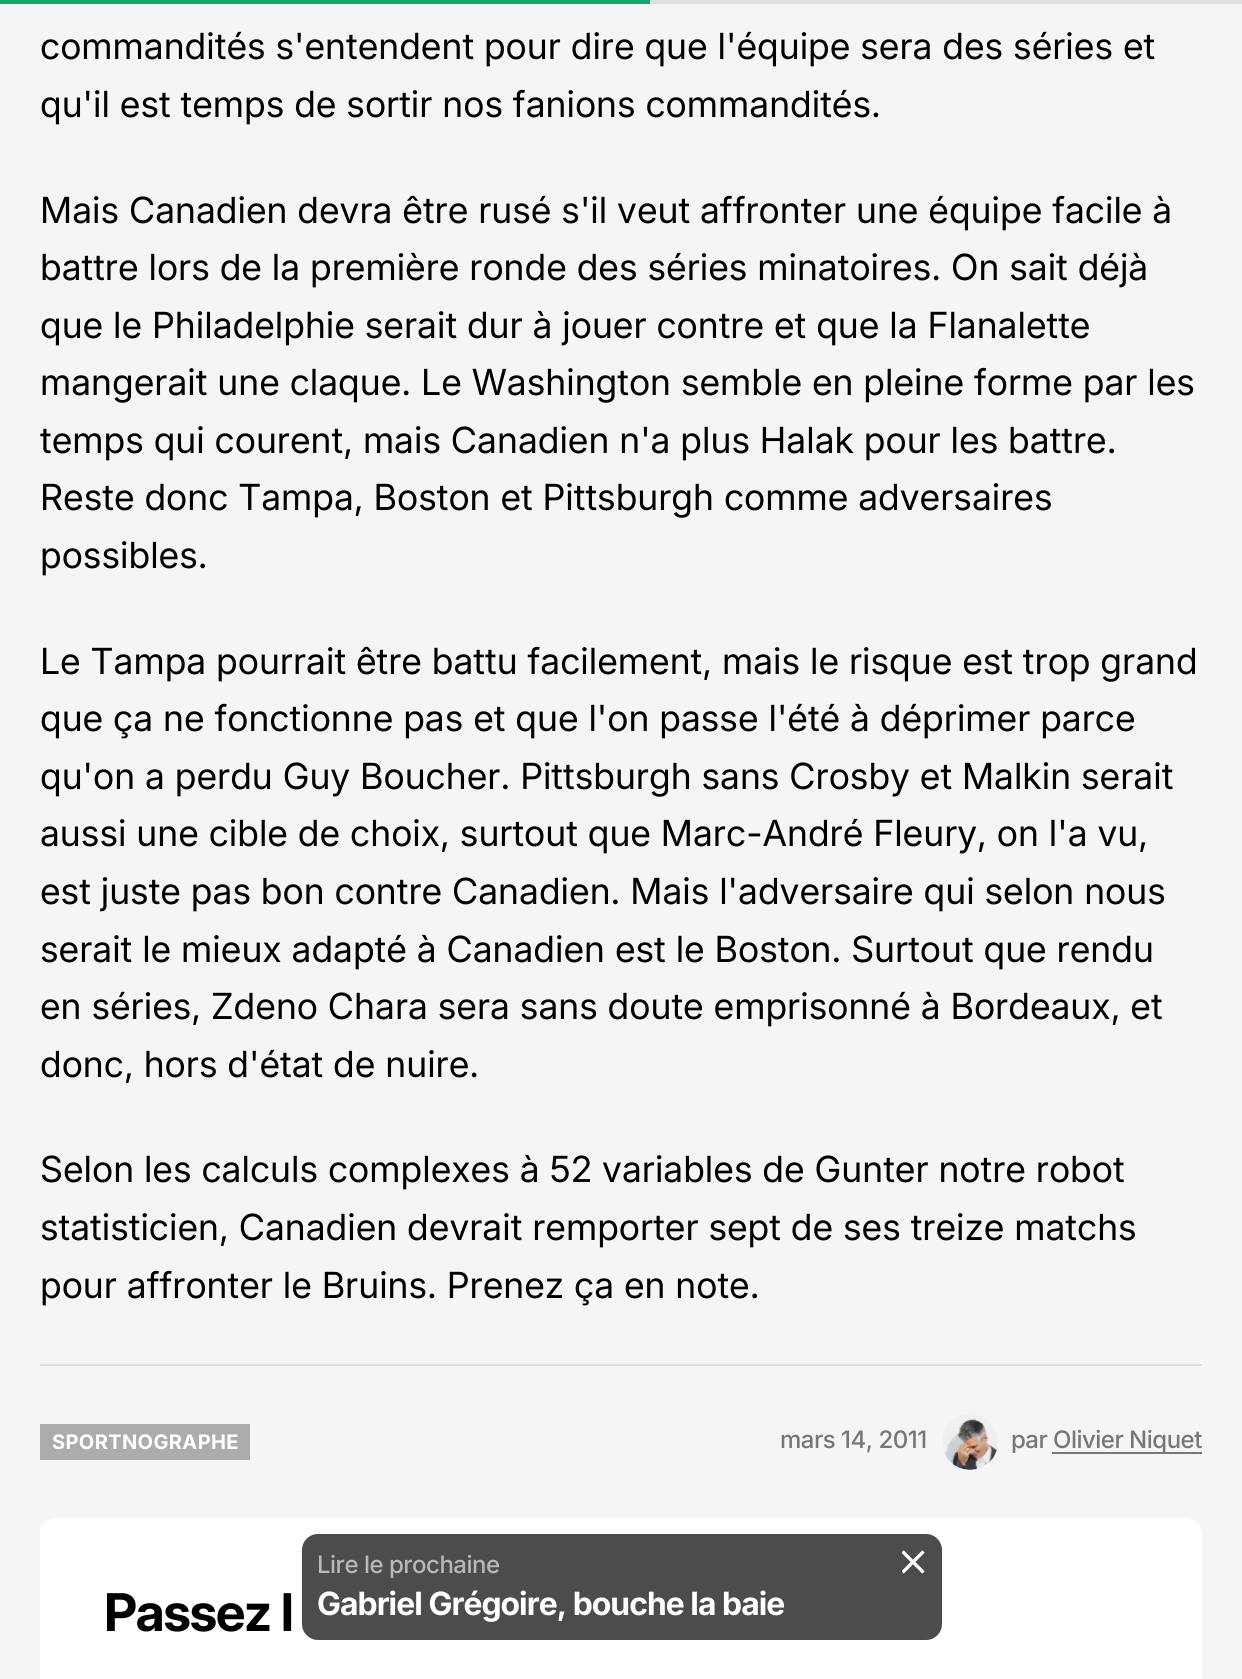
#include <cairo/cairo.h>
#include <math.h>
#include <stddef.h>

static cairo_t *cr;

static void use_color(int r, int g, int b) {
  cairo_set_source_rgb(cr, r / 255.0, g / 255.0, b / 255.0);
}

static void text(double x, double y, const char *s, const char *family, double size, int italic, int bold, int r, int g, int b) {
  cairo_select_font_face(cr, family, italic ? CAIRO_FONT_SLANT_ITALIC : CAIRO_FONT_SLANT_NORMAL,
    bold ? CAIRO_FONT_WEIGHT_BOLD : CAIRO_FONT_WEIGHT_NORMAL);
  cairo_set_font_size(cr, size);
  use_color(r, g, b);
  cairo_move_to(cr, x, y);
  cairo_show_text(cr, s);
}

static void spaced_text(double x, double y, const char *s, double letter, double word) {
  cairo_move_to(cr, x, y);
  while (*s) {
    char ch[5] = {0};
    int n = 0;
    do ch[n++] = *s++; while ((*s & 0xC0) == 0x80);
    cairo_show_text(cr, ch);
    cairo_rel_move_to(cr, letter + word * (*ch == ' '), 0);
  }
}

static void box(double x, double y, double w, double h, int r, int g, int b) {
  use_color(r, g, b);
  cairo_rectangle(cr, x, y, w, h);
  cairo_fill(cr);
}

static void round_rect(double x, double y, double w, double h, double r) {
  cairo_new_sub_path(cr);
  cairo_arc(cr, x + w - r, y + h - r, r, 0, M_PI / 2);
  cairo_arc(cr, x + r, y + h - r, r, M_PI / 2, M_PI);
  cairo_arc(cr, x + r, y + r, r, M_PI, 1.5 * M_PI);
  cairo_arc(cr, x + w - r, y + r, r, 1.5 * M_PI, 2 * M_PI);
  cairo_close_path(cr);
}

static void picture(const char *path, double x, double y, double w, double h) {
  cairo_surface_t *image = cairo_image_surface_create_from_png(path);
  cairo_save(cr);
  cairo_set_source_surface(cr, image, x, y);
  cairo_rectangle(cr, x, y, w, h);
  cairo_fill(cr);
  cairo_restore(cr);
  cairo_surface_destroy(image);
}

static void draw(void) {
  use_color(245, 245, 247);
  cairo_paint(cr);
  box(650, 0, 592, 4, 223, 223, 223);
  box(0, 0, 650, 4, 20, 167, 108);
  box(40, 1364, 1162, 2, 223, 223, 223);
  box(40, 1424, 210, 36, 172, 172, 173);
  picture("img_01.png", 942, 1414, 56, 56);
  box(1052, 1452, 150, 2, 119, 119, 120);
  use_color(255, 255, 255);
  round_rect(40, 1518, 1162, 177, 16);
  cairo_fill(cr);
  cairo_set_source_rgba(cr, 0, 0, 0, 0.7);
  round_rect(302, 1534, 640, 106, 16);
  cairo_fill(cr);
  picture("img_02.png", 902, 1550, 23, 24);
  text(40, 59, "commandités s'entendent pour dire que l'équipe sera des séries et", "Inter", 36, 0, 0, 0, 0, 0);
  text(40, 117, "qu'il est temps de sortir nos fanions commandités.", "Inter", 36, 0, 0, 0, 0, 0);
  text(40, 223, "Mais Canadien devra être rusé s'il veut affronter une équipe facile à", "Inter", 36, 0, 0, 0, 0, 0);
  text(40, 280, "battre lors de la première ronde des séries minatoires. On sait déjà", "Inter", 36, 0, 0, 0, 0, 0);
  text(40, 338, "que le Philadelphie serait dur à jouer contre et que la Flanalette", "Inter", 36, 0, 0, 0, 0, 0);
  text(40, 395, "mangerait une claque. Le Washington semble en pleine forme par les", "Inter", 36, 0, 0, 0, 0, 0);
  text(40, 453, "temps qui courent, mais Canadien n'a plus Halak pour les battre.", "Inter", 36, 0, 0, 0, 0, 0);
  text(40, 510, "Reste donc Tampa, Boston et Pittsburgh comme adversaires", "Inter", 36, 0, 0, 0, 0, 0);
  text(40, 568, "possibles.", "Inter", 36, 0, 0, 0, 0, 0);
  text(40, 674, "Le Tampa pourrait être battu facilement, mais le risque est trop grand", "Inter", 36, 0, 0, 0, 0, 0);
  text(40, 731, "que ça ne fonctionne pas et que l'on passe l'été à déprimer parce", "Inter", 36, 0, 0, 0, 0, 0);
  text(40, 789, "qu'on a perdu Guy Boucher. Pittsburgh sans Crosby et Malkin serait", "Inter", 36, 0, 0, 0, 0, 0);
  text(40, 846, "aussi une cible de choix, surtout que Marc-André Fleury, on l'a vu,", "Inter", 36, 0, 0, 0, 0, 0);
  text(40, 904, "est juste pas bon contre Canadien. Mais l'adversaire qui selon nous", "Inter", 36, 0, 0, 0, 0, 0);
  text(40, 962, "serait le mieux adapté à Canadien est le Boston. Surtout que rendu", "Inter", 36, 0, 0, 0, 0, 0);
  text(40, 1019, "en séries, Zdeno Chara sera sans doute emprisonné à Bordeaux, et", "Inter", 36, 0, 0, 0, 0, 0);
  text(40, 1077, "donc, hors d'état de nuire.", "Inter", 36, 0, 0, 0, 0, 0);
  text(40, 1182, "Selon les calculs complexes à 52 variables de Gunter notre robot", "Inter", 36, 0, 0, 0, 0, 0);
  text(40, 1240, "statisticien, Canadien devrait remporter sept de ses treize matchs", "Inter", 36, 0, 0, 0, 0, 0);
  text(40, 1298, "pour affronter le Bruins. Prenez ça en note.", "Inter", 36, 0, 0, 0, 0, 0);
  cairo_select_font_face(cr, "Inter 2", CAIRO_FONT_SLANT_NORMAL, CAIRO_FONT_WEIGHT_BOLD);
  cairo_set_font_size(cr, 20);
  use_color(255, 255, 255);
  spaced_text(52, 1449, "SPORTNOGRAPHE", 0.4, 0);
  cairo_select_font_face(cr, "Inter Medium", CAIRO_FONT_SLANT_NORMAL, CAIRO_FONT_WEIGHT_NORMAL);
  cairo_set_font_size(cr, 24);
  use_color(119, 119, 120);
  spaced_text(780, 1448, "mars 14, 2011", -0.5, 0);
  spaced_text(1011, 1448, "par", -0.5, 0);
  spaced_text(1053, 1448, "Olivier Niquet", -0.5, 0);
  cairo_select_font_face(cr, "Inter", CAIRO_FONT_SLANT_NORMAL, CAIRO_FONT_WEIGHT_BOLD);
  cairo_set_font_size(cr, 52);
  use_color(0, 0, 0);
  spaced_text(104, 1631, "Passez l", -1.5, 0);
  cairo_select_font_face(cr, "Inter Medium", CAIRO_FONT_SLANT_NORMAL, CAIRO_FONT_WEIGHT_NORMAL);
  cairo_set_font_size(cr, 24);
  use_color(184, 184, 184);
  spaced_text(317, 1573, "Lire le prochaine", -0.5, 0);
  cairo_select_font_face(cr, "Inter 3", CAIRO_FONT_SLANT_NORMAL, CAIRO_FONT_WEIGHT_BOLD);
  cairo_set_font_size(cr, 32);
  use_color(255, 255, 255);
  spaced_text(317, 1615, "Gabriel Grégoire, bouche la baie", -0.95, 0);
}

int main(void) {
  cairo_surface_t *surface = cairo_image_surface_create(CAIRO_FORMAT_RGB24, 1242, 1679);
  cr = cairo_create(surface);
  cairo_font_options_t *options = cairo_font_options_create();
  cairo_font_options_set_hint_metrics(options, CAIRO_HINT_METRICS_OFF);
  cairo_font_options_set_hint_style(options, CAIRO_HINT_STYLE_NONE);
  cairo_set_font_options(cr, options);
  cairo_set_miter_limit(cr, 4);
  draw();
  cairo_surface_write_to_png(surface, "out.png");
  cairo_font_options_destroy(options);
  cairo_destroy(cr);
  cairo_surface_destroy(surface);
  return 0;
}
